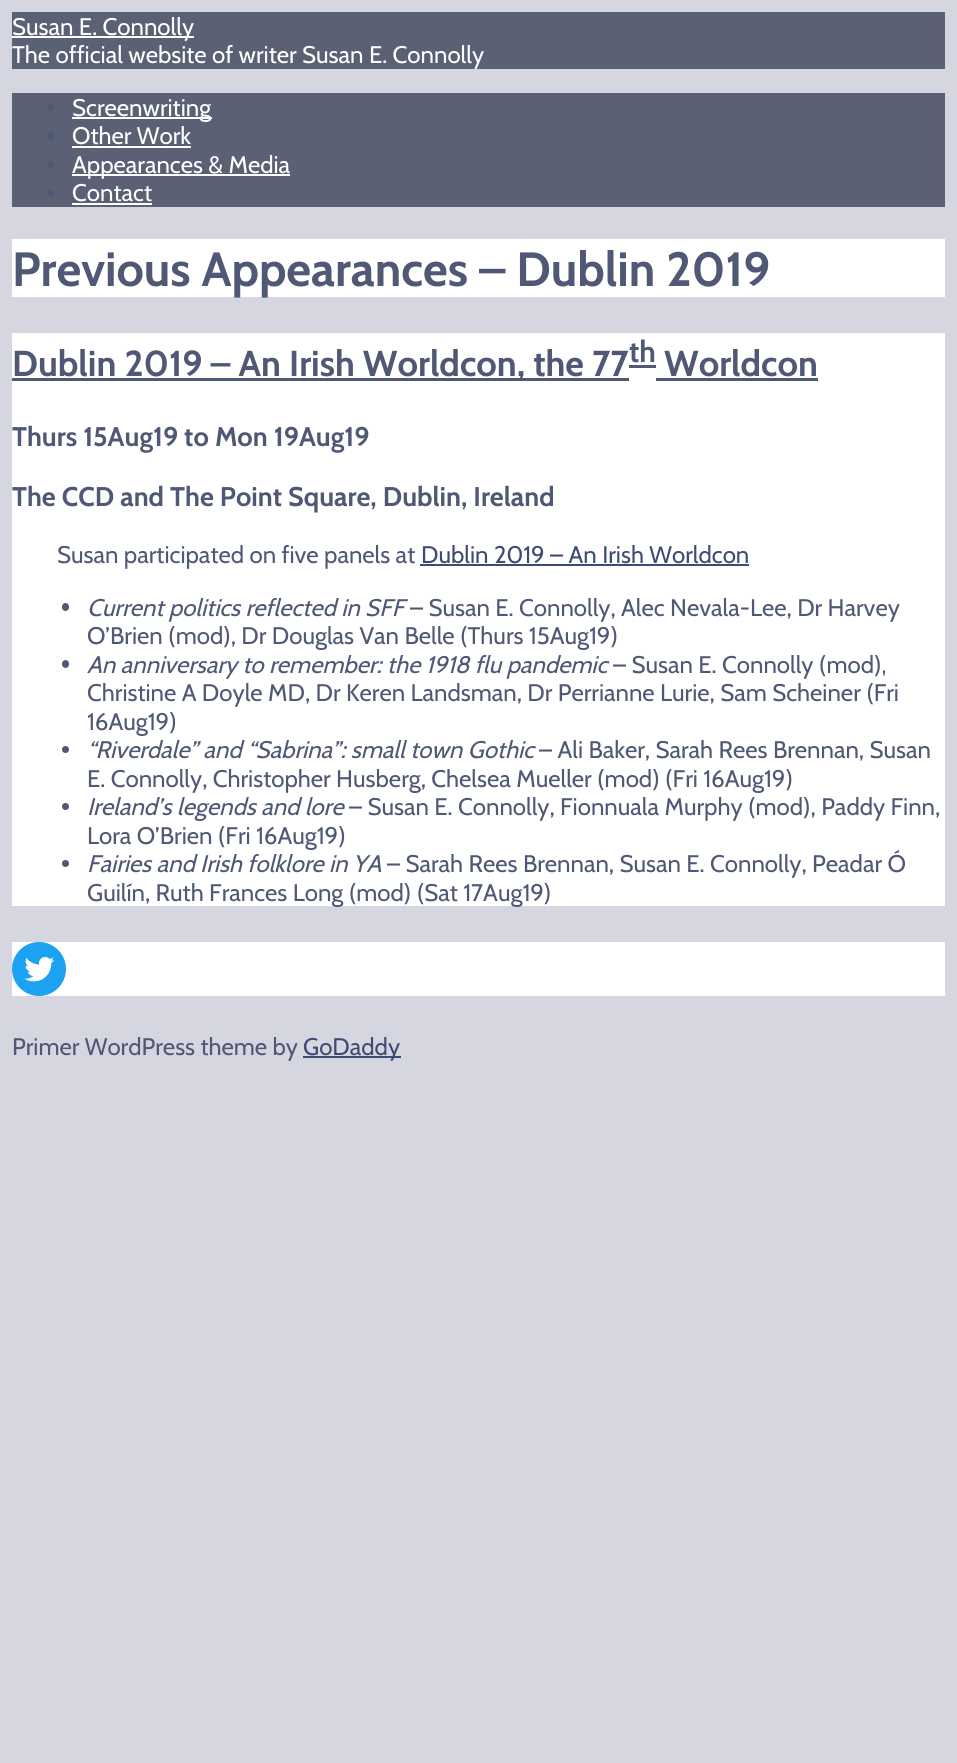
#include <cairo/cairo.h>
#include <math.h>
#include <stddef.h>

static cairo_t *cr;

static void use_color(int r, int g, int b) {
  cairo_set_source_rgb(cr, r / 255.0, g / 255.0, b / 255.0);
}

static void text(double x, double y, const char *s, const char *family, double size, int italic, int bold, int r, int g, int b) {
  cairo_select_font_face(cr, family, italic ? CAIRO_FONT_SLANT_ITALIC : CAIRO_FONT_SLANT_NORMAL,
    bold ? CAIRO_FONT_WEIGHT_BOLD : CAIRO_FONT_WEIGHT_NORMAL);
  cairo_set_font_size(cr, size);
  use_color(r, g, b);
  cairo_move_to(cr, x, y);
  cairo_show_text(cr, s);
}

static void box(double x, double y, double w, double h, int r, int g, int b) {
  use_color(r, g, b);
  cairo_rectangle(cr, x, y, w, h);
  cairo_fill(cr);
}

static void round_rect(double x, double y, double w, double h, double r) {
  cairo_new_sub_path(cr);
  cairo_arc(cr, x + w - r, y + h - r, r, 0, M_PI / 2);
  cairo_arc(cr, x + r, y + h - r, r, M_PI / 2, M_PI);
  cairo_arc(cr, x + r, y + r, r, M_PI, 1.5 * M_PI);
  cairo_arc(cr, x + w - r, y + r, r, 1.5 * M_PI, 2 * M_PI);
  cairo_close_path(cr);
}

static void picture(const char *path, double x, double y, double w, double h) {
  cairo_surface_t *image = cairo_image_surface_create_from_png(path);
  cairo_save(cr);
  cairo_set_source_surface(cr, image, x, y);
  cairo_rectangle(cr, x, y, w, h);
  cairo_fill(cr);
  cairo_restore(cr);
  cairo_surface_destroy(image);
}

static void draw(void) {
  use_color(213, 214, 224);
  cairo_paint(cr);
  box(12, 12, 933, 57, 90, 97, 117);
  box(12, 36, 182, 2, 255, 255, 255);
  box(12, 93, 933, 114, 90, 97, 117);
  use_color(79, 88, 117);
  cairo_arc(cr, 50.5, 107.5, 3.5, 0, 2 * M_PI);
  cairo_fill(cr);
  box(72, 117, 140, 2, 255, 255, 255);
  use_color(79, 88, 117);
  round_rect(47, 132, 7, 8, 3.5);
  cairo_fill(cr);
  box(72, 146, 119, 2, 255, 255, 255);
  use_color(79, 88, 117);
  cairo_arc(cr, 50.5, 164.5, 3.5, 0, 2 * M_PI);
  cairo_fill(cr);
  box(72, 174, 218, 2, 255, 255, 255);
  use_color(79, 88, 117);
  round_rect(47, 189, 7, 8, 3.5);
  cairo_fill(cr);
  box(72, 203, 80, 2, 255, 255, 255);
  box(12, 239, 933, 58, 255, 255, 255);
  box(12, 333, 933, 573, 255, 255, 255);
  box(12, 378, 617, 3, 79, 88, 117);
  box(629, 365, 27, 3, 79, 88, 117);
  box(656, 378, 162, 3, 79, 88, 117);
  box(420, 564, 329, 2, 62, 76, 117);
  use_color(79, 88, 117);
  round_rect(62, 603, 7, 8, 3.5);
  cairo_fill(cr);
  round_rect(62, 660, 7, 8, 3.5);
  cairo_fill(cr);
  cairo_arc(cr, 65.5, 749.5, 3.5, 0, 2 * M_PI);
  cairo_fill(cr);
  cairo_arc(cr, 65.5, 806.5, 3.5, 0, 2 * M_PI);
  cairo_fill(cr);
  cairo_arc(cr, 65.5, 863.5, 3.5, 0, 2 * M_PI);
  cairo_fill(cr);
  box(12, 942, 933, 54, 255, 255, 255);
  use_color(29, 161, 242);
  cairo_arc(cr, 39, 969, 27, 0, 2 * M_PI);
  cairo_fill(cr);
  picture("img_01.png", 24, 957, 31, 25);
  box(303, 1056, 98, 2, 62, 76, 117);
  text(12, 35, "Susan E. Connolly", "Cabin", 24, 0, 0, 255, 255, 255);
  text(12, 63, "The official website of writer Susan E. Connolly", "Cabin", 24, 0, 0, 255, 255, 255);
  text(72, 116, "Screenwriting", "Cabin", 24, 0, 0, 255, 255, 255);
  text(72, 144, "Other Work", "Cabin", 24, 0, 0, 255, 255, 255);
  text(72, 173, "Appearances & Media", "Cabin", 24, 0, 0, 255, 255, 255);
  text(72, 201, "Contact", "Cabin", 24, 0, 0, 255, 255, 255);
  text(12, 286, "Previous Appearances – Dublin 2019", "Cabin", 48, 0, 1, 79, 88, 117);
  text(12, 376, "Dublin 2019 – An Irish Worldcon, the 77", "Cabin", 36, 0, 1, 79, 88, 117);
  text(629, 362, "th", "Cabin", 30, 0, 1, 79, 88, 117);
  text(664, 376, "Worldcon", "Cabin", 36, 0, 1, 79, 88, 117);
  text(12, 446, "Thurs 15Aug19 to Mon 19Aug19", "Cabin", 27, 0, 1, 79, 88, 117);
  text(12, 506, "The CCD and The Point Square, Dublin, Ireland", "Cabin", 27, 0, 1, 79, 88, 117);
  text(57, 563, "Susan participated on five panels at", "Cabin", 24, 0, 0, 79, 88, 117);
  text(421, 563, "Dublin 2019 – An Irish Worldcon", "Cabin", 24, 0, 0, 62, 76, 117);
  text(87, 616, "Current politics reflected in SFF", "Cabin", 24, 1, 0, 79, 88, 117);
  text(410, 616, "– Susan E. Connolly, Alec Nevala-Lee, Dr Harvey", "Cabin", 24, 0, 0, 79, 88, 117);
  text(87, 644, "O’Brien (mod), Dr Douglas Van Belle (Thurs 15Aug19)", "Cabin", 24, 0, 0, 79, 88, 117);
  text(87, 673, "An anniversary to remember: the 1918 flu pandemic", "Cabin", 24, 1, 0, 79, 88, 117);
  text(613, 673, "– Susan E. Connolly (mod),", "Cabin", 24, 0, 0, 79, 88, 117);
  text(87, 701, "Christine A Doyle MD, Dr Keren Landsman, Dr Perrianne Lurie, Sam Scheiner (Fri", "Cabin", 24, 0, 0, 79, 88, 117);
  text(87, 730, "16Aug19)", "Cabin", 24, 0, 0, 79, 88, 117);
  text(87, 758, "“Riverdale” and “Sabrina”: small town Gothic", "Cabin", 24, 1, 0, 79, 88, 117);
  text(539, 758, "– Ali Baker, Sarah Rees Brennan, Susan", "Cabin", 24, 0, 0, 79, 88, 117);
  text(87, 787, "E. Connolly, Christopher Husberg, Chelsea Mueller (mod) (Fri 16Aug19)", "Cabin", 24, 0, 0, 79, 88, 117);
  text(87, 815, "Ireland’s legends and lore", "Cabin", 24, 1, 0, 79, 88, 117);
  text(349, 815, "– Susan E. Connolly, Fionnuala Murphy (mod), Paddy Finn,", "Cabin", 24, 0, 0, 79, 88, 117);
  text(87, 844, "Lora O’Brien (Fri 16Aug19)", "Cabin", 24, 0, 0, 79, 88, 117);
  text(87, 872, "Fairies and Irish folklore in YA", "Cabin", 24, 1, 0, 79, 88, 117);
  text(387, 872, "– Sarah Rees Brennan, Susan E. Connolly, Peadar Ó", "Cabin", 24, 0, 0, 79, 88, 117);
  text(87, 901, "Guilín, Ruth Frances Long (mod) (Sat 17Aug19)", "Cabin", 24, 0, 0, 79, 88, 117);
  text(12, 1055, "Primer WordPress theme by", "Cabin", 24, 0, 0, 79, 88, 117);
  text(303, 1055, "GoDaddy", "Cabin", 24, 0, 0, 62, 76, 117);
}

int main(void) {
  cairo_surface_t *surface = cairo_image_surface_create(CAIRO_FORMAT_RGB24, 957, 1763);
  cr = cairo_create(surface);
  cairo_font_options_t *options = cairo_font_options_create();
  cairo_font_options_set_hint_metrics(options, CAIRO_HINT_METRICS_OFF);
  cairo_font_options_set_hint_style(options, CAIRO_HINT_STYLE_NONE);
  cairo_set_font_options(cr, options);
  cairo_set_miter_limit(cr, 4);
  draw();
  cairo_surface_write_to_png(surface, "out.png");
  cairo_font_options_destroy(options);
  cairo_destroy(cr);
  cairo_surface_destroy(surface);
  return 0;
}
